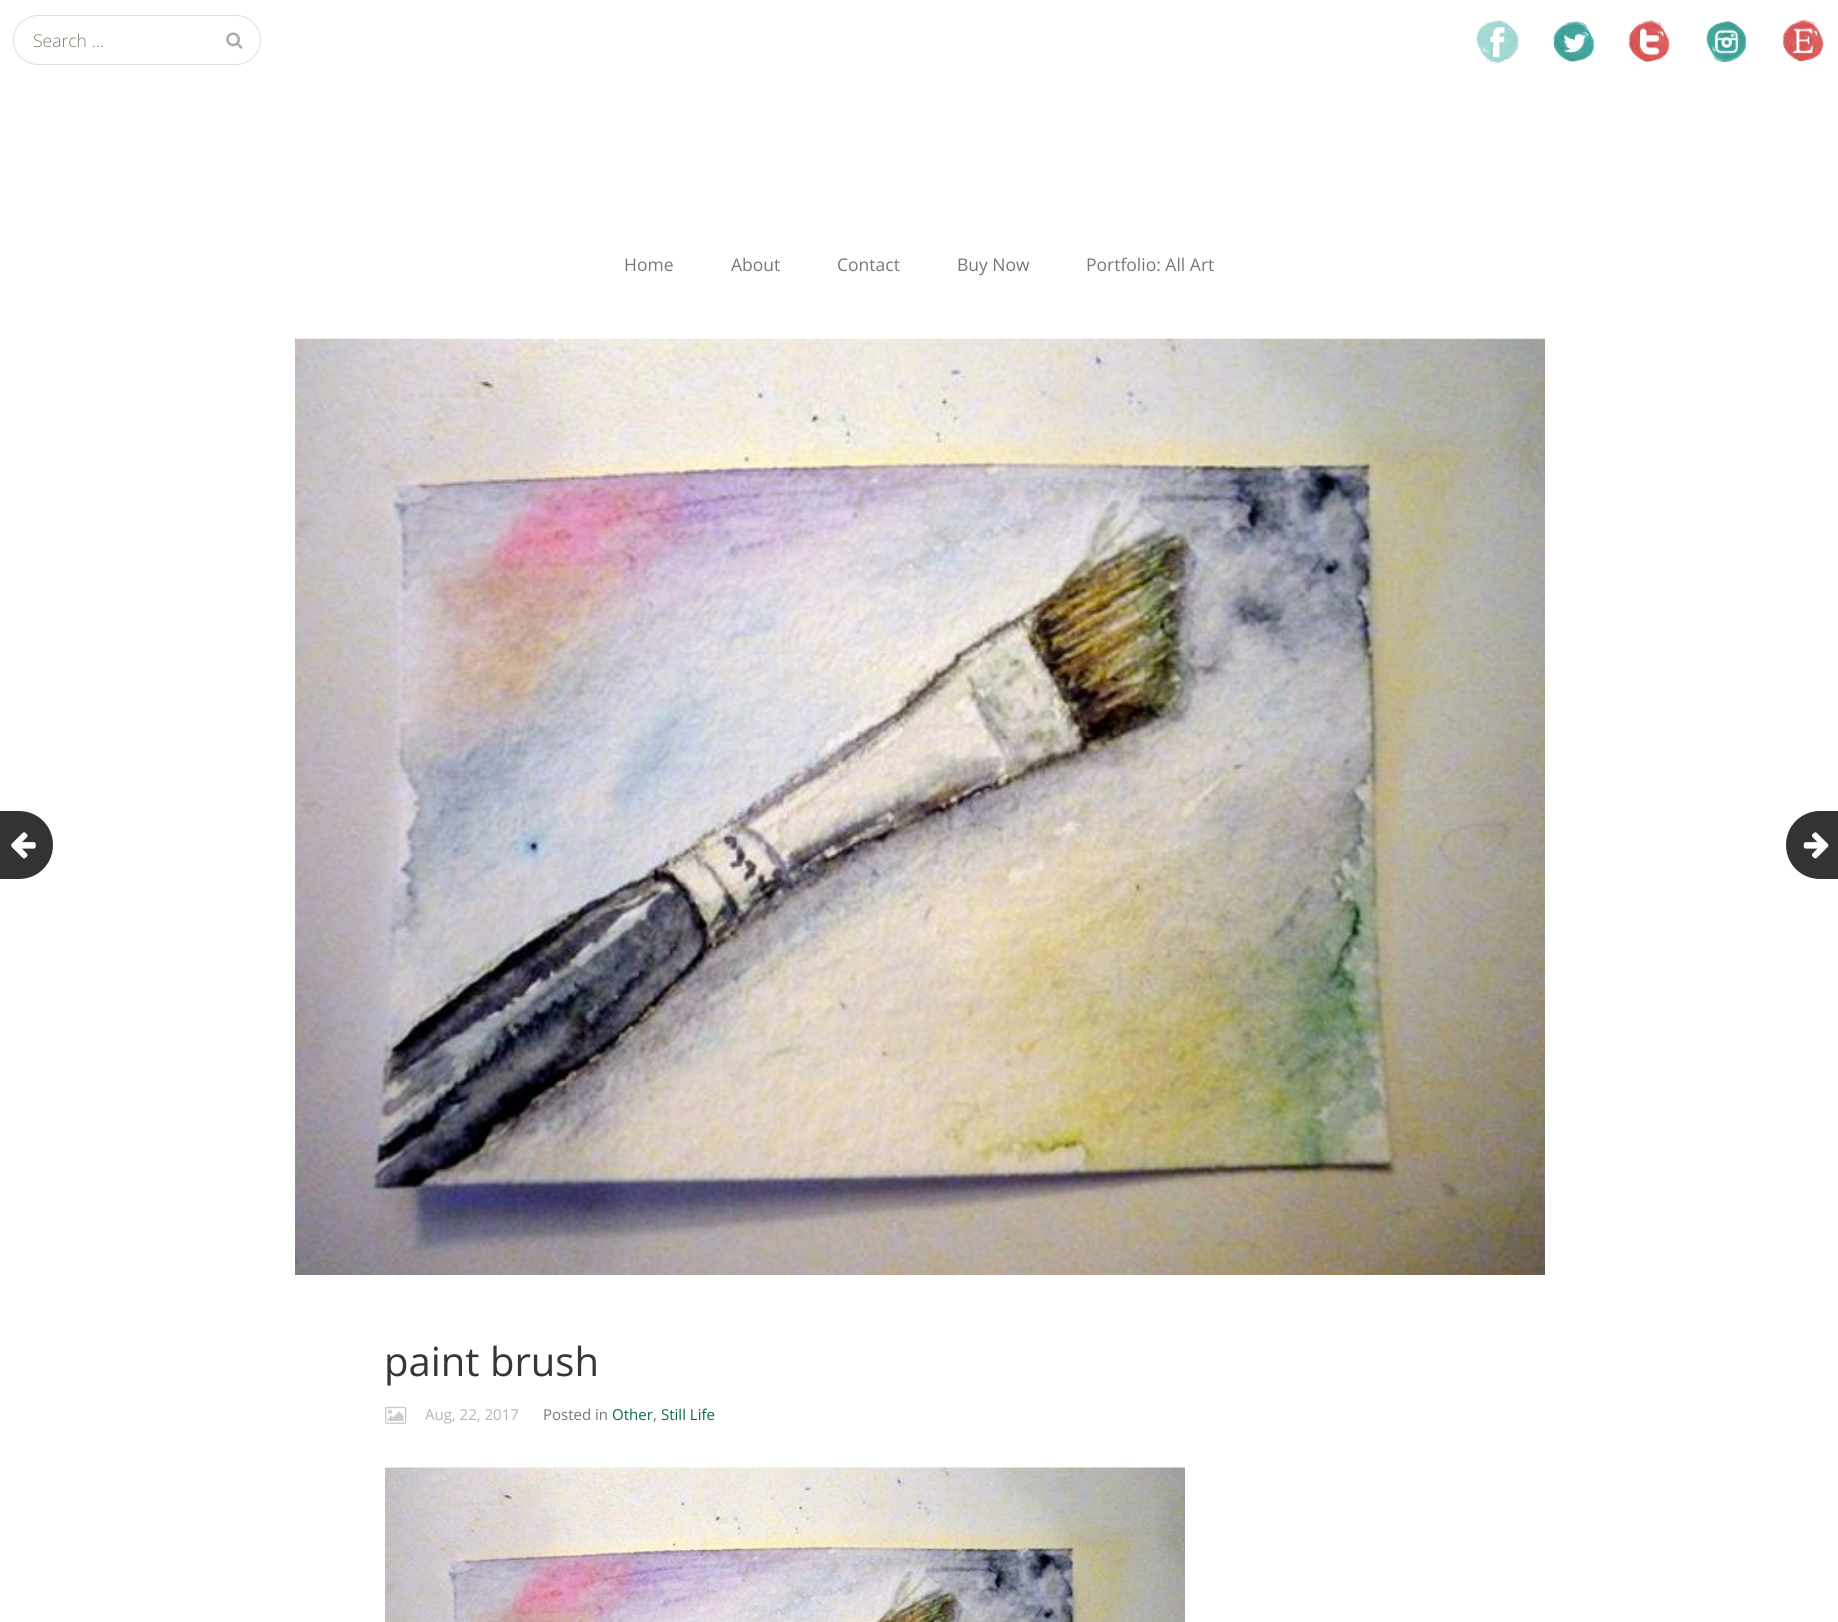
#include <cairo/cairo.h>
#include <math.h>
#include <stddef.h>

static cairo_t *cr;

static void use_color(int r, int g, int b) {
  cairo_set_source_rgb(cr, r / 255.0, g / 255.0, b / 255.0);
}

static void text(double x, double y, const char *s, const char *family, double size, int italic, int bold, int r, int g, int b) {
  cairo_select_font_face(cr, family, italic ? CAIRO_FONT_SLANT_ITALIC : CAIRO_FONT_SLANT_NORMAL,
    bold ? CAIRO_FONT_WEIGHT_BOLD : CAIRO_FONT_WEIGHT_NORMAL);
  cairo_set_font_size(cr, size);
  use_color(r, g, b);
  cairo_move_to(cr, x, y);
  cairo_show_text(cr, s);
}

static void round_rect(double x, double y, double w, double h, double r) {
  cairo_new_sub_path(cr);
  cairo_arc(cr, x + w - r, y + h - r, r, 0, M_PI / 2);
  cairo_arc(cr, x + r, y + h - r, r, M_PI / 2, M_PI);
  cairo_arc(cr, x + r, y + r, r, M_PI, 1.5 * M_PI);
  cairo_arc(cr, x + w - r, y + r, r, 1.5 * M_PI, 2 * M_PI);
  cairo_close_path(cr);
}

static void picture(const char *path, double x, double y, double w, double h) {
  cairo_surface_t *image = cairo_image_surface_create_from_png(path);
  cairo_save(cr);
  cairo_set_source_surface(cr, image, x, y);
  cairo_rectangle(cr, x, y, w, h);
  cairo_fill(cr);
  cairo_restore(cr);
  cairo_surface_destroy(image);
}

static void draw(void) {
  use_color(255, 255, 255);
  cairo_paint(cr);
  round_rect(13.5, 15.5, 247, 49, 24.5);
  use_color(221, 221, 221);
  cairo_set_line_width(cr, 1);
  cairo_stroke(cr);
  picture("img_01.png", 226, 32, 17, 17);
  picture("img_02.png", 1476, 20, 43, 44);
  picture("img_03.png", 1553, 20, 42, 42);
  picture("img_04.png", 1629, 20, 41, 42);
  picture("img_05.png", 1706, 21, 41, 43);
  picture("img_06.png", 1783, 19, 41, 43);
  use_color(51, 51, 51);
  cairo_new_path(cr);
  cairo_move_to(cr, -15, 811);
  cairo_line_to(cr, 19, 811);
  cairo_curve_to(cr, 38, 811, 53, 826, 53, 845);
  cairo_curve_to(cr, 53, 864, 38, 879, 19, 879);
  cairo_line_to(cr, -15, 879);
  cairo_close_path(cr);
  cairo_fill(cr);
  picture("img_07.png", 11, 832, 25, 27);
  cairo_new_path(cr);
  cairo_move_to(cr, 1820, 811);
  cairo_line_to(cr, 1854, 811);
  cairo_line_to(cr, 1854, 879);
  cairo_line_to(cr, 1820, 879);
  cairo_curve_to(cr, 1801, 879, 1786, 864, 1786, 845);
  cairo_curve_to(cr, 1786, 826, 1801, 811, 1820, 811);
  cairo_close_path(cr);
  cairo_fill(cr);
  picture("img_08.png", 1803, 832, 26, 27);
  picture("img_09.png", 295, 338, 1250, 937);
  picture("img_10.png", 385, 1406, 22, 18);
  picture("img_11.png", 385, 1467, 800, 155);
  text(33, 47, "Search …", "Open Sans Light", 17.5, 0, 0, 125, 123, 109);
  text(624, 271, "Home", "Open Sans", 17.5, 0, 0, 119, 119, 119);
  text(731, 271, "About", "Open Sans", 17.5, 0, 0, 119, 119, 119);
  text(837, 271, "Contact", "Open Sans", 17.5, 0, 0, 119, 119, 119);
  text(957, 271, "Buy Now", "Open Sans", 17.5, 0, 0, 119, 119, 119);
  text(1086, 271, "Portfolio: All Art", "Open Sans", 17.5, 0, 0, 119, 119, 119);
  text(384, 1376, "paint brush", "Open Sans", 40, 0, 0, 54, 54, 54);
  text(425, 1420, "Aug, 22, 2017", "Open Sans", 15, 0, 0, 181, 181, 181);
  text(543, 1420, "Posted in", "Open Sans", 15, 0, 0, 119, 119, 119);
  text(612, 1420, "Other", "Open Sans", 15, 0, 0, 8, 104, 78);
  text(653, 1420, ",", "Open Sans", 15, 0, 0, 119, 119, 119);
  text(661, 1420, "Still Life", "Open Sans", 15, 0, 0, 8, 104, 78);
}

int main(void) {
  cairo_surface_t *surface = cairo_image_surface_create(CAIRO_FORMAT_RGB24, 1838, 1622);
  cr = cairo_create(surface);
  cairo_font_options_t *options = cairo_font_options_create();
  cairo_font_options_set_hint_metrics(options, CAIRO_HINT_METRICS_OFF);
  cairo_font_options_set_hint_style(options, CAIRO_HINT_STYLE_NONE);
  cairo_set_font_options(cr, options);
  cairo_set_miter_limit(cr, 4);
  draw();
  cairo_surface_write_to_png(surface, "out.png");
  cairo_font_options_destroy(options);
  cairo_destroy(cr);
  cairo_surface_destroy(surface);
  return 0;
}
